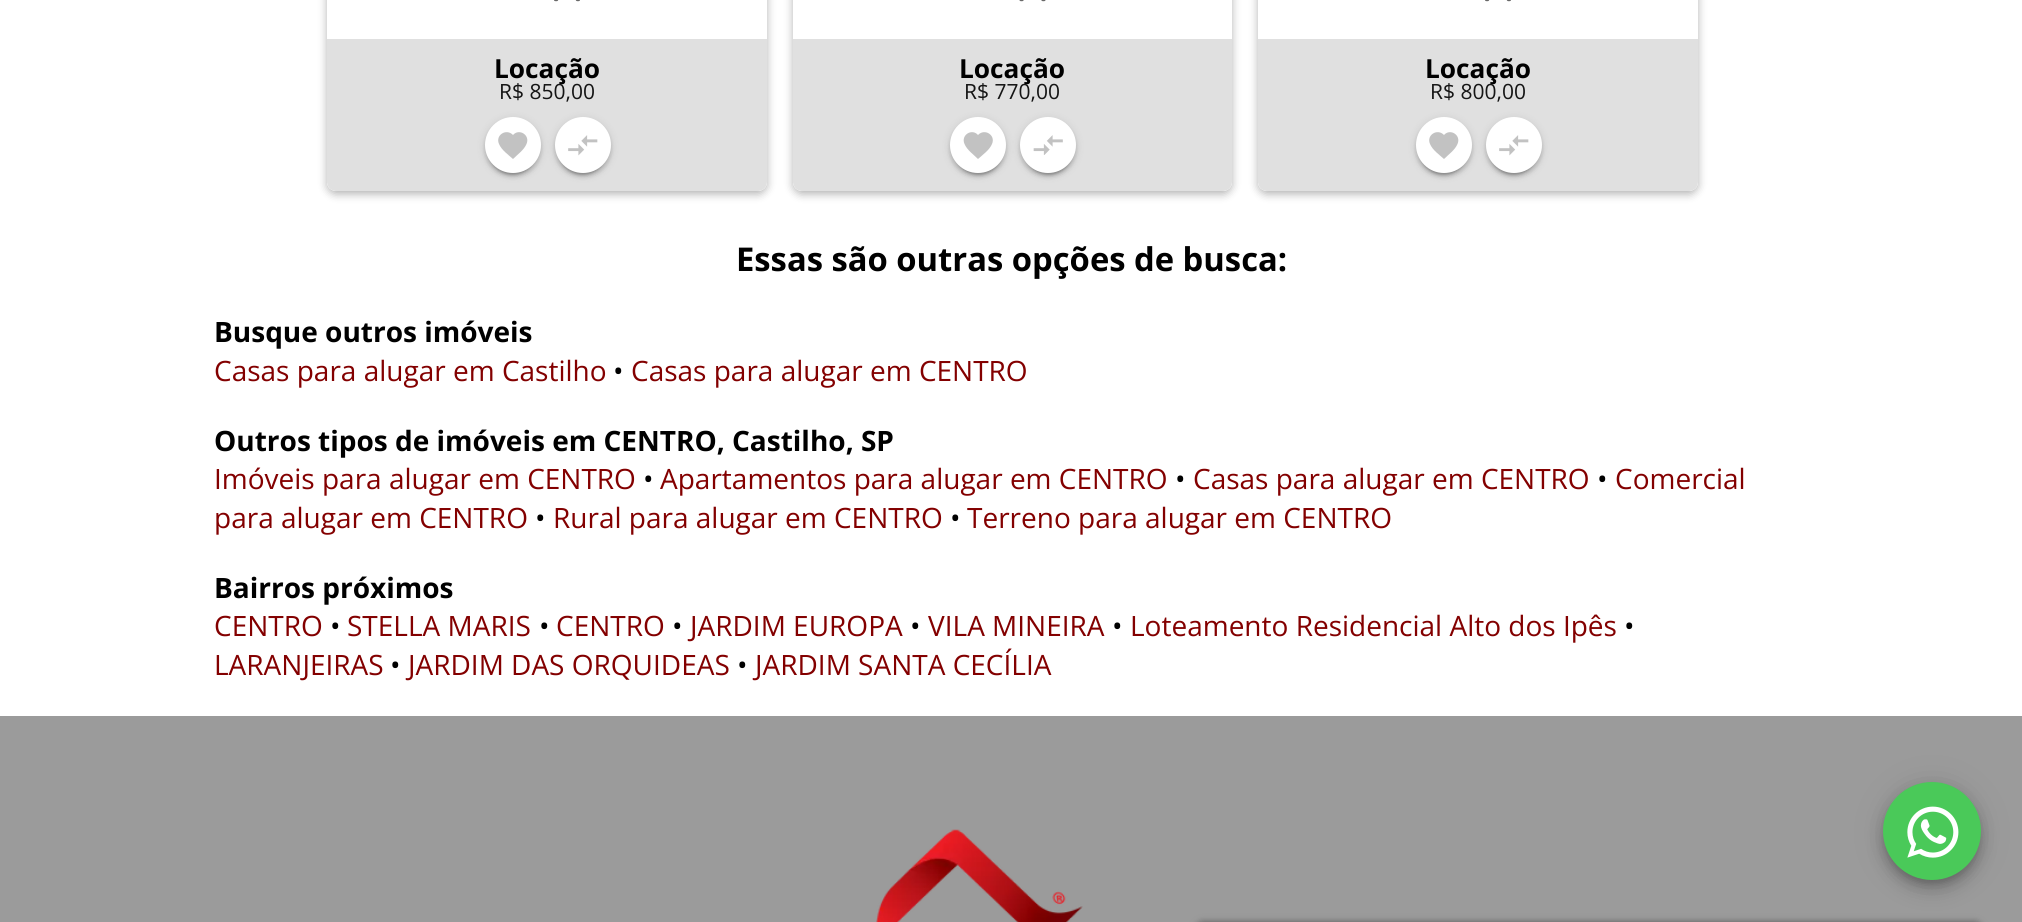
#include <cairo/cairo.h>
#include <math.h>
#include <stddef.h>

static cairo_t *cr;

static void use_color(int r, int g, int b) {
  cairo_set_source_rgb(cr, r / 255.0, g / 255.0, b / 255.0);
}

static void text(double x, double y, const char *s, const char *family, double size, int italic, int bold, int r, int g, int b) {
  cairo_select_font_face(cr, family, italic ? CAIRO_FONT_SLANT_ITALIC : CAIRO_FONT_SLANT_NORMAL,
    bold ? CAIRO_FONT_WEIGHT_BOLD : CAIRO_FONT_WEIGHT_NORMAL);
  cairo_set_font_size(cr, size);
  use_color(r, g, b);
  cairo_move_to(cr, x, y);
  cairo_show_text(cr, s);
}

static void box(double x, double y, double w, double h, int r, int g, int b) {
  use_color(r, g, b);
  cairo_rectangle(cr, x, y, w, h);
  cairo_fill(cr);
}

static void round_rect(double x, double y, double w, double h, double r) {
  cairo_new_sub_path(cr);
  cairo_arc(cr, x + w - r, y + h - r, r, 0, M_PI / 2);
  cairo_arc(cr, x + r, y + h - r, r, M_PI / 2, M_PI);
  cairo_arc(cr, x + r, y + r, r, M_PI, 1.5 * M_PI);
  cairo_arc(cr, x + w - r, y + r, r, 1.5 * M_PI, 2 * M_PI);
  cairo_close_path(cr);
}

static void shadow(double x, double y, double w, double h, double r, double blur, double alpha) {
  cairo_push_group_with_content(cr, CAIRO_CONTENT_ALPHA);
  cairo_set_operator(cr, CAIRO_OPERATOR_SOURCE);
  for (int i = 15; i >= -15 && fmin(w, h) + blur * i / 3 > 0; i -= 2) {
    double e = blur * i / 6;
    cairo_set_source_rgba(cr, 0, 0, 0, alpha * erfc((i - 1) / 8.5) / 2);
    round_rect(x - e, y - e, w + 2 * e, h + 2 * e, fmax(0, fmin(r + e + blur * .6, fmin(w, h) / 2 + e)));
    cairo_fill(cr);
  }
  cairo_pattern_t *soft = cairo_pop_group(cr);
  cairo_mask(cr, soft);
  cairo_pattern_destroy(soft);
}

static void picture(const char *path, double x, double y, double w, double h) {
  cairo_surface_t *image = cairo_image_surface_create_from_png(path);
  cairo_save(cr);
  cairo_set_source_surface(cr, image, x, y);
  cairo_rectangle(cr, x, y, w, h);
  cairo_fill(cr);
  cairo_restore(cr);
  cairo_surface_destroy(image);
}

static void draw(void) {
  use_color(255, 255, 255);
  cairo_paint(cr);
  cairo_save(cr);
  cairo_set_fill_rule(cr, CAIRO_FILL_RULE_EVEN_ODD);
  cairo_new_path(cr);
  cairo_move_to(cr, 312, 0);
  cairo_line_to(cr, 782, 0);
  cairo_line_to(cr, 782, 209);
  cairo_line_to(cr, 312, 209);
  cairo_close_path(cr);
  cairo_move_to(cr, 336, -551);
  cairo_line_to(cr, 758, -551);
  cairo_curve_to(cr, 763, -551, 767, -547, 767, -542);
  cairo_line_to(cr, 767, 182);
  cairo_curve_to(cr, 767, 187, 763, 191, 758, 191);
  cairo_line_to(cr, 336, 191);
  cairo_curve_to(cr, 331, 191, 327, 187, 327, 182);
  cairo_line_to(cr, 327, -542);
  cairo_curve_to(cr, 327, -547, 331, -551, 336, -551);
  cairo_close_path(cr);
  cairo_clip(cr);
  use_color(0, 0, 0);
  shadow(327, -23, 440, 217, 9, 4.5, 0.3);
  cairo_restore(cr);
  picture("img_01.png", 554, 0, 26, 2);
  use_color(224, 224, 224);
  cairo_new_path(cr);
  cairo_move_to(cr, 327, 39);
  cairo_line_to(cr, 767, 39);
  cairo_line_to(cr, 767, 182);
  cairo_curve_to(cr, 767, 187, 763, 191, 758, 191);
  cairo_line_to(cr, 336, 191);
  cairo_curve_to(cr, 331, 191, 327, 187, 327, 182);
  cairo_close_path(cr);
  cairo_fill(cr);
  use_color(0, 0, 0);
  shadow(485, 119, 56, 56, 28, 4.5, 0.12);
  shadow(485, 121, 56, 56, 28, 2, 0.14);
  shadow(488, 126, 49, 49, 24.5, 1, 0.2);
  use_color(255, 255, 255);
  cairo_arc(cr, 513, 145, 28, 0, 2 * M_PI);
  cairo_fill(cr);
  use_color(194, 194, 194);
  cairo_new_path(cr);
  cairo_move_to(cr, 513, 159);
  cairo_curve_to(cr, 508, 154.5, 501.5, 150, 499, 144);
  cairo_curve_to(cr, 495, 135, 506.5, 128, 513, 135);
  cairo_curve_to(cr, 519, 128, 530.5, 135, 526.5, 144);
  cairo_curve_to(cr, 524, 150, 517.5, 154.5, 513, 159);
  cairo_close_path(cr);
  cairo_fill(cr);
  use_color(0, 0, 0);
  shadow(555, 119, 56, 56, 28, 4.5, 0.12);
  shadow(555, 121, 56, 56, 28, 2, 0.14);
  shadow(558, 126, 49, 49, 24.5, 1, 0.2);
  use_color(255, 255, 255);
  cairo_arc(cr, 583, 145, 28, 0, 2 * M_PI);
  cairo_fill(cr);
  picture("img_02.png", 568, 135, 30, 21);
  cairo_save(cr);
  cairo_set_fill_rule(cr, CAIRO_FILL_RULE_EVEN_ODD);
  cairo_new_path(cr);
  cairo_move_to(cr, 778, 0);
  cairo_line_to(cr, 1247, 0);
  cairo_line_to(cr, 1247, 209);
  cairo_line_to(cr, 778, 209);
  cairo_close_path(cr);
  cairo_move_to(cr, 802, -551);
  cairo_line_to(cr, 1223, -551);
  cairo_curve_to(cr, 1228, -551, 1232, -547, 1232, -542);
  cairo_line_to(cr, 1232, 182);
  cairo_curve_to(cr, 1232, 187, 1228, 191, 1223, 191);
  cairo_line_to(cr, 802, 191);
  cairo_curve_to(cr, 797, 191, 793, 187, 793, 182);
  cairo_line_to(cr, 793, -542);
  cairo_curve_to(cr, 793, -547, 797, -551, 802, -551);
  cairo_close_path(cr);
  cairo_clip(cr);
  use_color(0, 0, 0);
  shadow(793, -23, 439, 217, 9, 4.5, 0.3);
  cairo_restore(cr);
  picture("img_03.png", 1019, 0, 27, 2);
  use_color(224, 224, 224);
  cairo_new_path(cr);
  cairo_move_to(cr, 793, 39);
  cairo_line_to(cr, 1232, 39);
  cairo_line_to(cr, 1232, 182);
  cairo_curve_to(cr, 1232, 187, 1228, 191, 1223, 191);
  cairo_line_to(cr, 802, 191);
  cairo_curve_to(cr, 797, 191, 793, 187, 793, 182);
  cairo_close_path(cr);
  cairo_fill(cr);
  use_color(0, 0, 0);
  shadow(950, 119, 56, 56, 28, 4.5, 0.12);
  shadow(950, 121, 56, 56, 28, 2, 0.14);
  shadow(954, 126, 49, 49, 24.5, 1, 0.2);
  use_color(255, 255, 255);
  cairo_arc(cr, 978, 145, 28, 0, 2 * M_PI);
  cairo_fill(cr);
  use_color(194, 194, 194);
  cairo_new_path(cr);
  cairo_move_to(cr, 978, 159);
  cairo_curve_to(cr, 973.5, 154.5, 967, 150, 964.5, 144);
  cairo_curve_to(cr, 960.5, 135, 972, 128, 978, 135);
  cairo_curve_to(cr, 984.5, 128, 996, 135, 992, 144);
  cairo_curve_to(cr, 989.5, 150, 983, 154.5, 978, 159);
  cairo_close_path(cr);
  cairo_fill(cr);
  use_color(0, 0, 0);
  shadow(1020, 119, 56, 56, 28, 4.5, 0.12);
  shadow(1020, 121, 56, 56, 28, 2, 0.14);
  shadow(1024, 126, 49, 49, 24.5, 1, 0.2);
  use_color(255, 255, 255);
  cairo_arc(cr, 1048, 145, 28, 0, 2 * M_PI);
  cairo_fill(cr);
  picture("img_04.png", 1033, 135, 30, 20);
  cairo_save(cr);
  cairo_set_fill_rule(cr, CAIRO_FILL_RULE_EVEN_ODD);
  cairo_new_path(cr);
  cairo_move_to(cr, 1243, 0);
  cairo_line_to(cr, 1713, 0);
  cairo_line_to(cr, 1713, 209);
  cairo_line_to(cr, 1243, 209);
  cairo_close_path(cr);
  cairo_move_to(cr, 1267, -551);
  cairo_line_to(cr, 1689, -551);
  cairo_curve_to(cr, 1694, -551, 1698, -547, 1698, -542);
  cairo_line_to(cr, 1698, 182);
  cairo_curve_to(cr, 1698, 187, 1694, 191, 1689, 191);
  cairo_line_to(cr, 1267, 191);
  cairo_curve_to(cr, 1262, 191, 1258, 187, 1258, 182);
  cairo_line_to(cr, 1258, -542);
  cairo_curve_to(cr, 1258, -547, 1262, -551, 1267, -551);
  cairo_close_path(cr);
  cairo_clip(cr);
  use_color(0, 0, 0);
  shadow(1258, -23, 440, 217, 9, 4.5, 0.3);
  cairo_restore(cr);
  picture("img_01.png", 1485, 0, 26, 2);
  use_color(224, 224, 224);
  cairo_new_path(cr);
  cairo_move_to(cr, 1258, 39);
  cairo_line_to(cr, 1698, 39);
  cairo_line_to(cr, 1698, 182);
  cairo_curve_to(cr, 1698, 187, 1694, 191, 1689, 191);
  cairo_line_to(cr, 1267, 191);
  cairo_curve_to(cr, 1262, 191, 1258, 187, 1258, 182);
  cairo_close_path(cr);
  cairo_fill(cr);
  use_color(0, 0, 0);
  shadow(1416, 119, 56, 56, 28, 4.5, 0.12);
  shadow(1416, 121, 56, 56, 28, 2, 0.14);
  shadow(1419, 126, 49, 49, 24.5, 1, 0.2);
  use_color(255, 255, 255);
  cairo_arc(cr, 1444, 145, 28, 0, 2 * M_PI);
  cairo_fill(cr);
  use_color(194, 194, 194);
  cairo_new_path(cr);
  cairo_move_to(cr, 1444, 159);
  cairo_curve_to(cr, 1439, 154.5, 1432.5, 150, 1430, 144);
  cairo_curve_to(cr, 1426, 135, 1437.5, 128, 1444, 135);
  cairo_curve_to(cr, 1450, 128, 1461.5, 135, 1457.5, 144);
  cairo_curve_to(cr, 1455, 150, 1448.5, 154.5, 1444, 159);
  cairo_close_path(cr);
  cairo_fill(cr);
  use_color(0, 0, 0);
  shadow(1486, 119, 56, 56, 28, 4.5, 0.12);
  shadow(1486, 121, 56, 56, 28, 2, 0.14);
  shadow(1489, 126, 49, 49, 24.5, 1, 0.2);
  use_color(255, 255, 255);
  cairo_arc(cr, 1514, 145, 28, 0, 2 * M_PI);
  cairo_fill(cr);
  picture("img_02.png", 1499, 135, 30, 21);
  box(0, 716, 2022, 206, 155, 155, 155);
  picture("img_05.png", 876, 829, 207, 93);
  use_color(0, 0, 0);
  shadow(1883, 784, 98, 98, 49, 16, 0.12);
  shadow(1883, 793, 98, 98, 49, 9, 0.14);
  shadow(1885, 789, 94, 95, 47, 4.5, 0.2);
  use_color(74, 201, 89);
  cairo_arc(cr, 1932, 831, 49, 0, 2 * M_PI);
  cairo_fill(cr);
  picture("img_06.png", 1907, 806, 52, 52);
  use_color(0, 0, 0);
  shadow(1195, 922, 788, 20, 9, 3.5, 0.4);
  text(494, 78, "Locação", "Open Sans", 26.25, 0, 1, 0, 0, 0);
  text(499, 99, "R$ 850,00", "Open Sans", 21, 0, 0, 21, 21, 21);
  text(959, 78, "Locação", "Open Sans", 26.25, 0, 1, 0, 0, 0);
  text(964, 99, "R$ 770,00", "Open Sans", 21, 0, 0, 21, 21, 21);
  text(1425, 78, "Locação", "Open Sans", 26.25, 0, 1, 0, 0, 0);
  text(1430, 99, "R$ 800,00", "Open Sans", 21, 0, 0, 21, 21, 21);
  text(736, 271, "Essas são outras opções de busca:", "Open Sans", 32.75, 0, 1, 0, 0, 0);
  text(214, 342, "Busque outros imóveis", "Open Sans", 28, 0, 1, 0, 0, 0);
  text(214, 381, "Casas para alugar em Castilho", "Open Sans", 28, 0, 0, 131, 0, 0);
  text(613, 381, "•", "Open Sans", 28, 0, 0, 0, 0, 0);
  text(631, 381, "Casas para alugar em CENTRO", "Open Sans", 28, 0, 0, 131, 0, 0);
  text(214, 451, "Outros tipos de imóveis em CENTRO, Castilho, SP", "Open Sans", 28, 0, 1, 0, 0, 0);
  text(214, 489, "Imóveis para alugar em CENTRO", "Open Sans", 28, 0, 0, 131, 0, 0);
  text(643, 489, "•", "Open Sans", 28, 0, 0, 0, 0, 0);
  text(660, 489, "Apartamentos para alugar em CENTRO", "Open Sans", 28, 0, 0, 131, 0, 0);
  text(1175, 489, "•", "Open Sans", 28, 0, 0, 0, 0, 0);
  text(1193, 489, "Casas para alugar em CENTRO", "Open Sans", 28, 0, 0, 131, 0, 0);
  text(1597, 489, "•", "Open Sans", 28, 0, 0, 0, 0, 0);
  text(1615, 489, "Comercial", "Open Sans", 28, 0, 0, 131, 0, 0);
  text(214, 528, "para alugar em CENTRO", "Open Sans", 28, 0, 0, 131, 0, 0);
  text(535, 528, "•", "Open Sans", 28, 0, 0, 0, 0, 0);
  text(553, 528, "Rural para alugar em CENTRO", "Open Sans", 28, 0, 0, 131, 0, 0);
  text(950, 528, "•", "Open Sans", 28, 0, 0, 0, 0, 0);
  text(967, 528, "Terreno para alugar em CENTRO", "Open Sans", 28, 0, 0, 131, 0, 0);
  text(214, 598, "Bairros próximos", "Open Sans", 28, 0, 1, 0, 0, 0);
  text(214, 636, "CENTRO", "Open Sans", 28, 0, 0, 131, 0, 0);
  text(330, 636, "•", "Open Sans", 28, 0, 0, 0, 0, 0);
  text(347, 636, "STELLA MARIS", "Open Sans", 28, 0, 0, 131, 0, 0);
  text(539, 636, "•", "Open Sans", 28, 0, 0, 0, 0, 0);
  text(556, 636, "CENTRO", "Open Sans", 28, 0, 0, 131, 0, 0);
  text(672, 636, "•", "Open Sans", 28, 0, 0, 0, 0, 0);
  text(690, 636, "JARDIM EUROPA", "Open Sans", 28, 0, 0, 131, 0, 0);
  text(910, 636, "•", "Open Sans", 28, 0, 0, 0, 0, 0);
  text(928, 636, "VILA MINEIRA", "Open Sans", 28, 0, 0, 131, 0, 0);
  text(1112, 636, "•", "Open Sans", 28, 0, 0, 0, 0, 0);
  text(1130, 636, "Loteamento Residencial Alto dos Ipês", "Open Sans", 28, 0, 0, 131, 0, 0);
  text(1624, 636, "•", "Open Sans", 28, 0, 0, 0, 0, 0);
  text(214, 675, "LARANJEIRAS", "Open Sans", 28, 0, 0, 131, 0, 0);
  text(390, 675, "•", "Open Sans", 28, 0, 0, 0, 0, 0);
  text(408, 675, "JARDIM DAS ORQUIDEAS", "Open Sans", 28, 0, 0, 131, 0, 0);
  text(737, 675, "•", "Open Sans", 28, 0, 0, 0, 0, 0);
  text(755, 675, "JARDIM SANTA CECÍLIA", "Open Sans", 28, 0, 0, 131, 0, 0);
}

int main(void) {
  cairo_surface_t *surface = cairo_image_surface_create(CAIRO_FORMAT_RGB24, 2022, 922);
  cr = cairo_create(surface);
  cairo_font_options_t *options = cairo_font_options_create();
  cairo_font_options_set_hint_metrics(options, CAIRO_HINT_METRICS_OFF);
  cairo_font_options_set_hint_style(options, CAIRO_HINT_STYLE_NONE);
  cairo_set_font_options(cr, options);
  cairo_set_miter_limit(cr, 4);
  draw();
  cairo_surface_write_to_png(surface, "out.png");
  cairo_font_options_destroy(options);
  cairo_destroy(cr);
  cairo_surface_destroy(surface);
  return 0;
}
